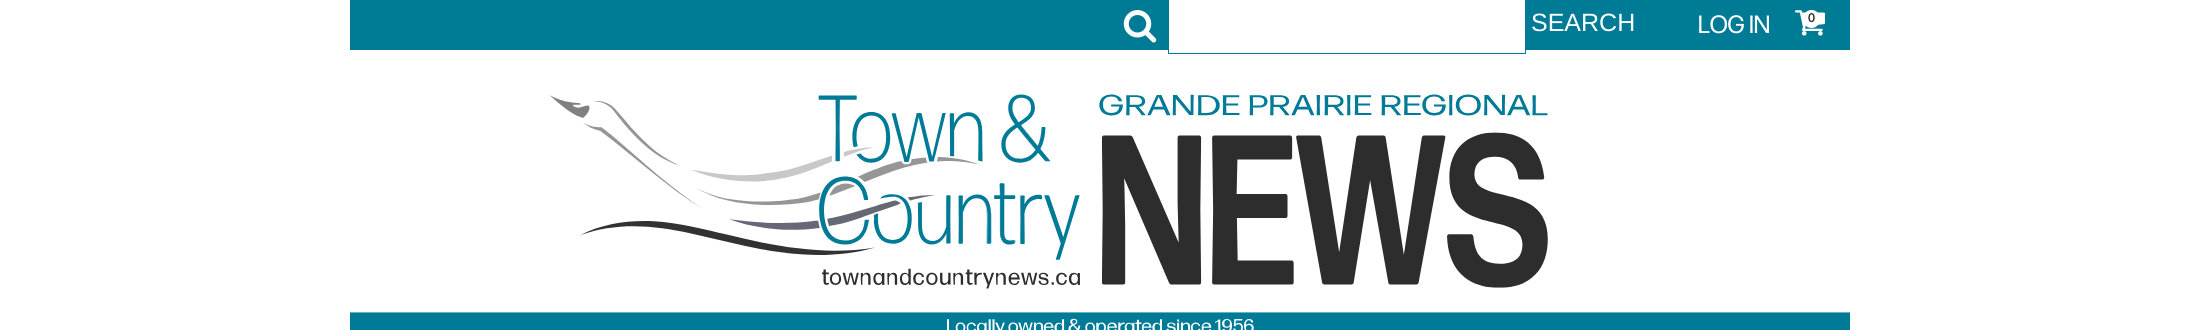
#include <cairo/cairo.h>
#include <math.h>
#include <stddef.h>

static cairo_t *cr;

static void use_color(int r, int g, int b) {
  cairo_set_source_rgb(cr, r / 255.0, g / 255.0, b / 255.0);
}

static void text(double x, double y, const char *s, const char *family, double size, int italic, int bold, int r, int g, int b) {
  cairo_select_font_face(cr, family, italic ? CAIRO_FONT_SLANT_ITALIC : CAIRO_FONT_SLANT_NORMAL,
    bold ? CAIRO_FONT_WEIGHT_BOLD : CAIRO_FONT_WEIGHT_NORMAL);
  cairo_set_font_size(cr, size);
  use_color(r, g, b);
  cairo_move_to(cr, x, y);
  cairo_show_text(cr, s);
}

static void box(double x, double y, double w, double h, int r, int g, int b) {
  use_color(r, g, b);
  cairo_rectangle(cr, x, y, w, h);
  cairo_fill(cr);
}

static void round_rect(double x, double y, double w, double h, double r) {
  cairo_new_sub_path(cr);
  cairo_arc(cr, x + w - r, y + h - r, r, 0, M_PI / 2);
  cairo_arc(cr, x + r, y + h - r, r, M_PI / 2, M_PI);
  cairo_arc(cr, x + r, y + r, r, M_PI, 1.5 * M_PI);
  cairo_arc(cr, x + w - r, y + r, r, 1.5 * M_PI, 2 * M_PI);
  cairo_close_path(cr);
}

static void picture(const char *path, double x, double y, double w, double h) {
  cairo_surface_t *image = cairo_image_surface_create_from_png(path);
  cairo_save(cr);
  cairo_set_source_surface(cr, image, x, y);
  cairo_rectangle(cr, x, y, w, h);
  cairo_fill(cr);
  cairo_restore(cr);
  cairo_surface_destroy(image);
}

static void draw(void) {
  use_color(255, 255, 255);
  cairo_paint(cr);
  box(350, 0, 1500, 50, 0, 123, 150);
  picture("img_01.png", 1123, 10, 34, 33);
  box(1169, 0, 356, 50, 255, 255, 255);
  cairo_rectangle(cr, 1168.5, -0.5, 357, 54);
  use_color(0, 123, 150);
  cairo_set_line_width(cr, 1);
  cairo_stroke(cr);
  picture("img_02.png", 1795, 10, 30, 26);
  use_color(255, 255, 255);
  round_rect(1803, 10, 17, 18, 8.5);
  cairo_fill(cr);
  picture("img_03.png", 350, 94, 1500, 236);
  text(1531, 31, "SEARCH", "Liberation Sans", 25, 0, 0, 255, 255, 255);
  text(1698, 33, "LOG IN", "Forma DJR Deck", 25, 0, 0, 255, 255, 255);
  text(1808, 22, "0", "Forma DJR Deck", 12, 0, 1, 48, 48, 48);
}

int main(void) {
  cairo_surface_t *surface = cairo_image_surface_create(CAIRO_FORMAT_RGB24, 2200, 330);
  cr = cairo_create(surface);
  cairo_font_options_t *options = cairo_font_options_create();
  cairo_font_options_set_hint_metrics(options, CAIRO_HINT_METRICS_OFF);
  cairo_font_options_set_hint_style(options, CAIRO_HINT_STYLE_NONE);
  cairo_set_font_options(cr, options);
  cairo_set_miter_limit(cr, 4);
  draw();
  cairo_surface_write_to_png(surface, "out.png");
  cairo_font_options_destroy(options);
  cairo_destroy(cr);
  cairo_surface_destroy(surface);
  return 0;
}
